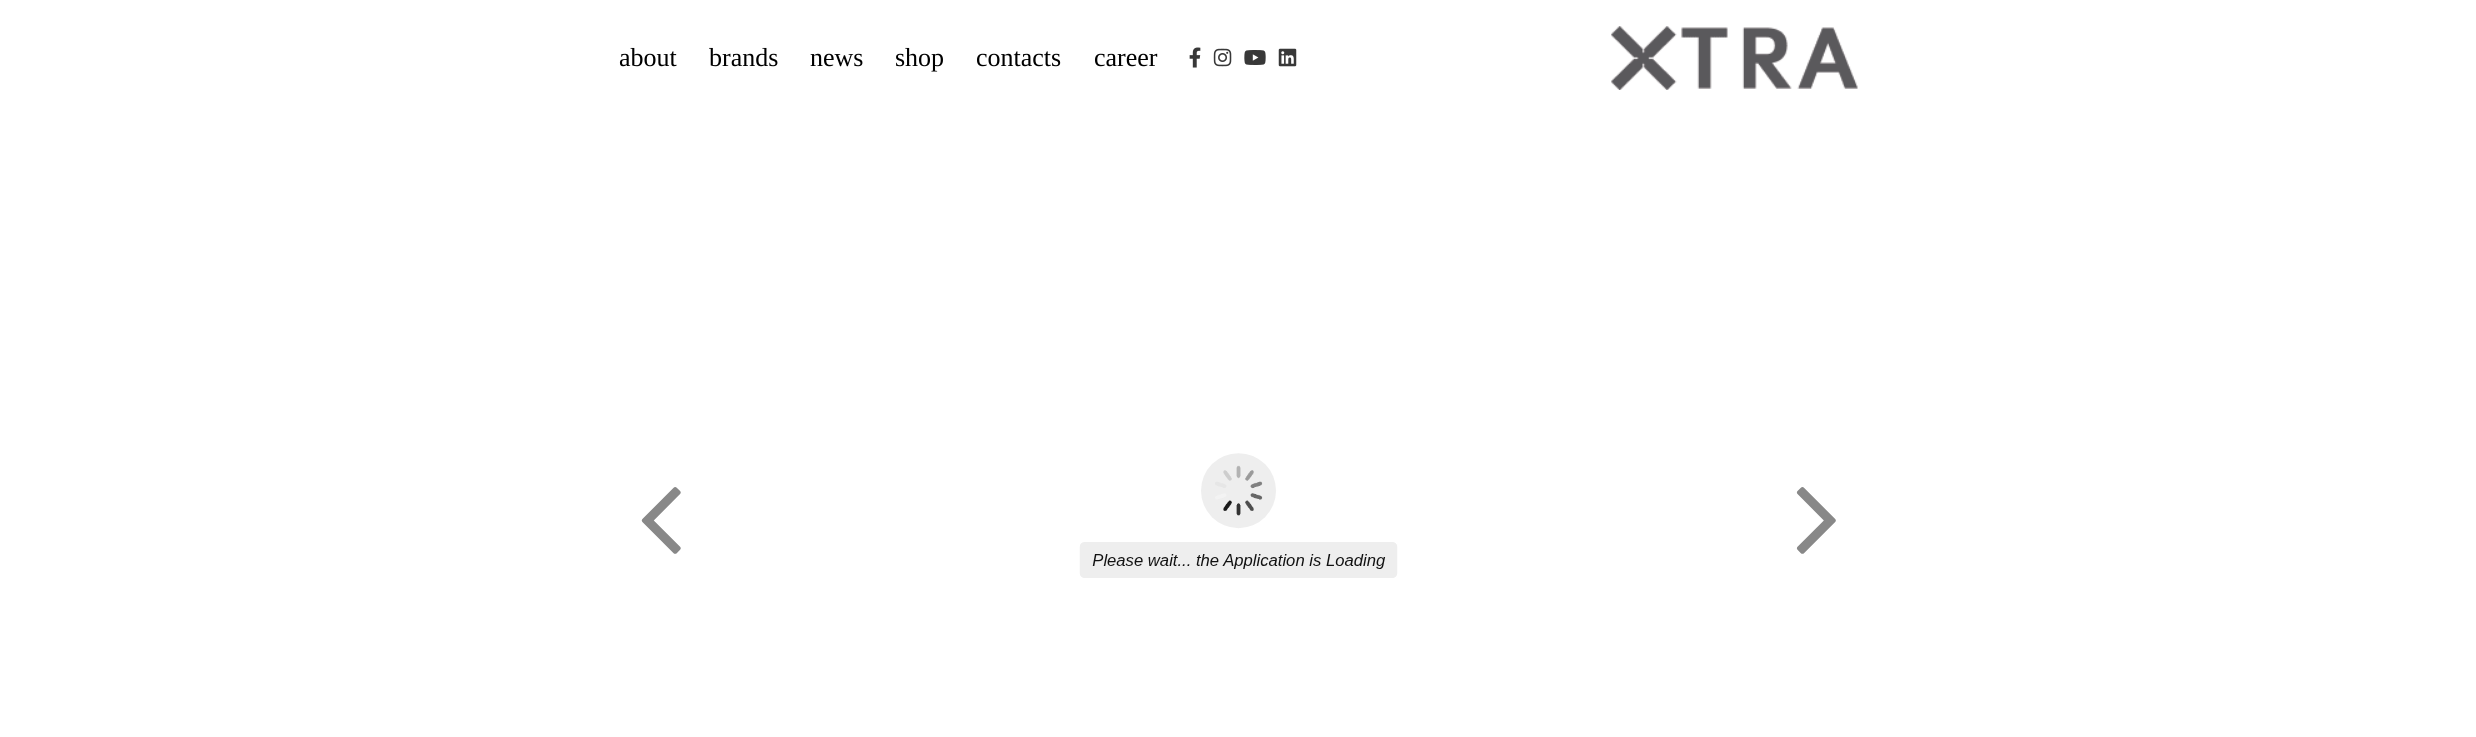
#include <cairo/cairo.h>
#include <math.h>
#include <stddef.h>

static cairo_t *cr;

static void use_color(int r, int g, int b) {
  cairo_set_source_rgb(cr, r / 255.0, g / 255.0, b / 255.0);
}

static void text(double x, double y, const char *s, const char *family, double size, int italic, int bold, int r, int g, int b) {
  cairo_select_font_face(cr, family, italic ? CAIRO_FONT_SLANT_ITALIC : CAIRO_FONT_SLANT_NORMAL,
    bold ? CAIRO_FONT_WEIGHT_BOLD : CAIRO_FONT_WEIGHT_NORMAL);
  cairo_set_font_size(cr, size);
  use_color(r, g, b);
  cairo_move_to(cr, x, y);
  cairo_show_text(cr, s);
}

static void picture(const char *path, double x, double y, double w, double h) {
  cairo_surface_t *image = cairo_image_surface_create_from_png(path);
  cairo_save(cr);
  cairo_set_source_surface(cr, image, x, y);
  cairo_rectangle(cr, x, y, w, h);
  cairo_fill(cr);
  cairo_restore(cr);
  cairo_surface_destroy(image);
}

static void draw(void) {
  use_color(255, 255, 255);
  cairo_paint(cr);
  picture("img_01.png", 1189, 47, 12, 21);
  picture("img_02.png", 1213, 48, 19, 19);
  picture("img_03.png", 1244, 50, 22, 15);
  picture("img_04.png", 1278, 48, 19, 19);
  picture("img_05.png", 1611, 26, 247, 64);
  picture("img_06.png", 641, 453, 1195, 125);
  text(619, 66, "about", "Liberation Serif", 26, 0, 0, 0, 0, 0);
  text(709, 66, "brands", "Liberation Serif", 26, 0, 0, 0, 0, 0);
  text(810, 66, "news", "Liberation Serif", 26, 0, 0, 0, 0, 0);
  text(895, 66, "shop", "Liberation Serif", 26, 0, 0, 0, 0, 0);
  text(976, 66, "contacts", "Liberation Serif", 26, 0, 0, 0, 0, 0);
  text(1094, 66, "career", "Liberation Serif", 26, 0, 0, 0, 0, 0);
}

int main(void) {
  cairo_surface_t *surface = cairo_image_surface_create(CAIRO_FORMAT_RGB24, 2476, 737);
  cr = cairo_create(surface);
  cairo_font_options_t *options = cairo_font_options_create();
  cairo_font_options_set_hint_metrics(options, CAIRO_HINT_METRICS_OFF);
  cairo_font_options_set_hint_style(options, CAIRO_HINT_STYLE_NONE);
  cairo_set_font_options(cr, options);
  cairo_set_miter_limit(cr, 4);
  draw();
  cairo_surface_write_to_png(surface, "out.png");
  cairo_font_options_destroy(options);
  cairo_destroy(cr);
  cairo_surface_destroy(surface);
  return 0;
}
